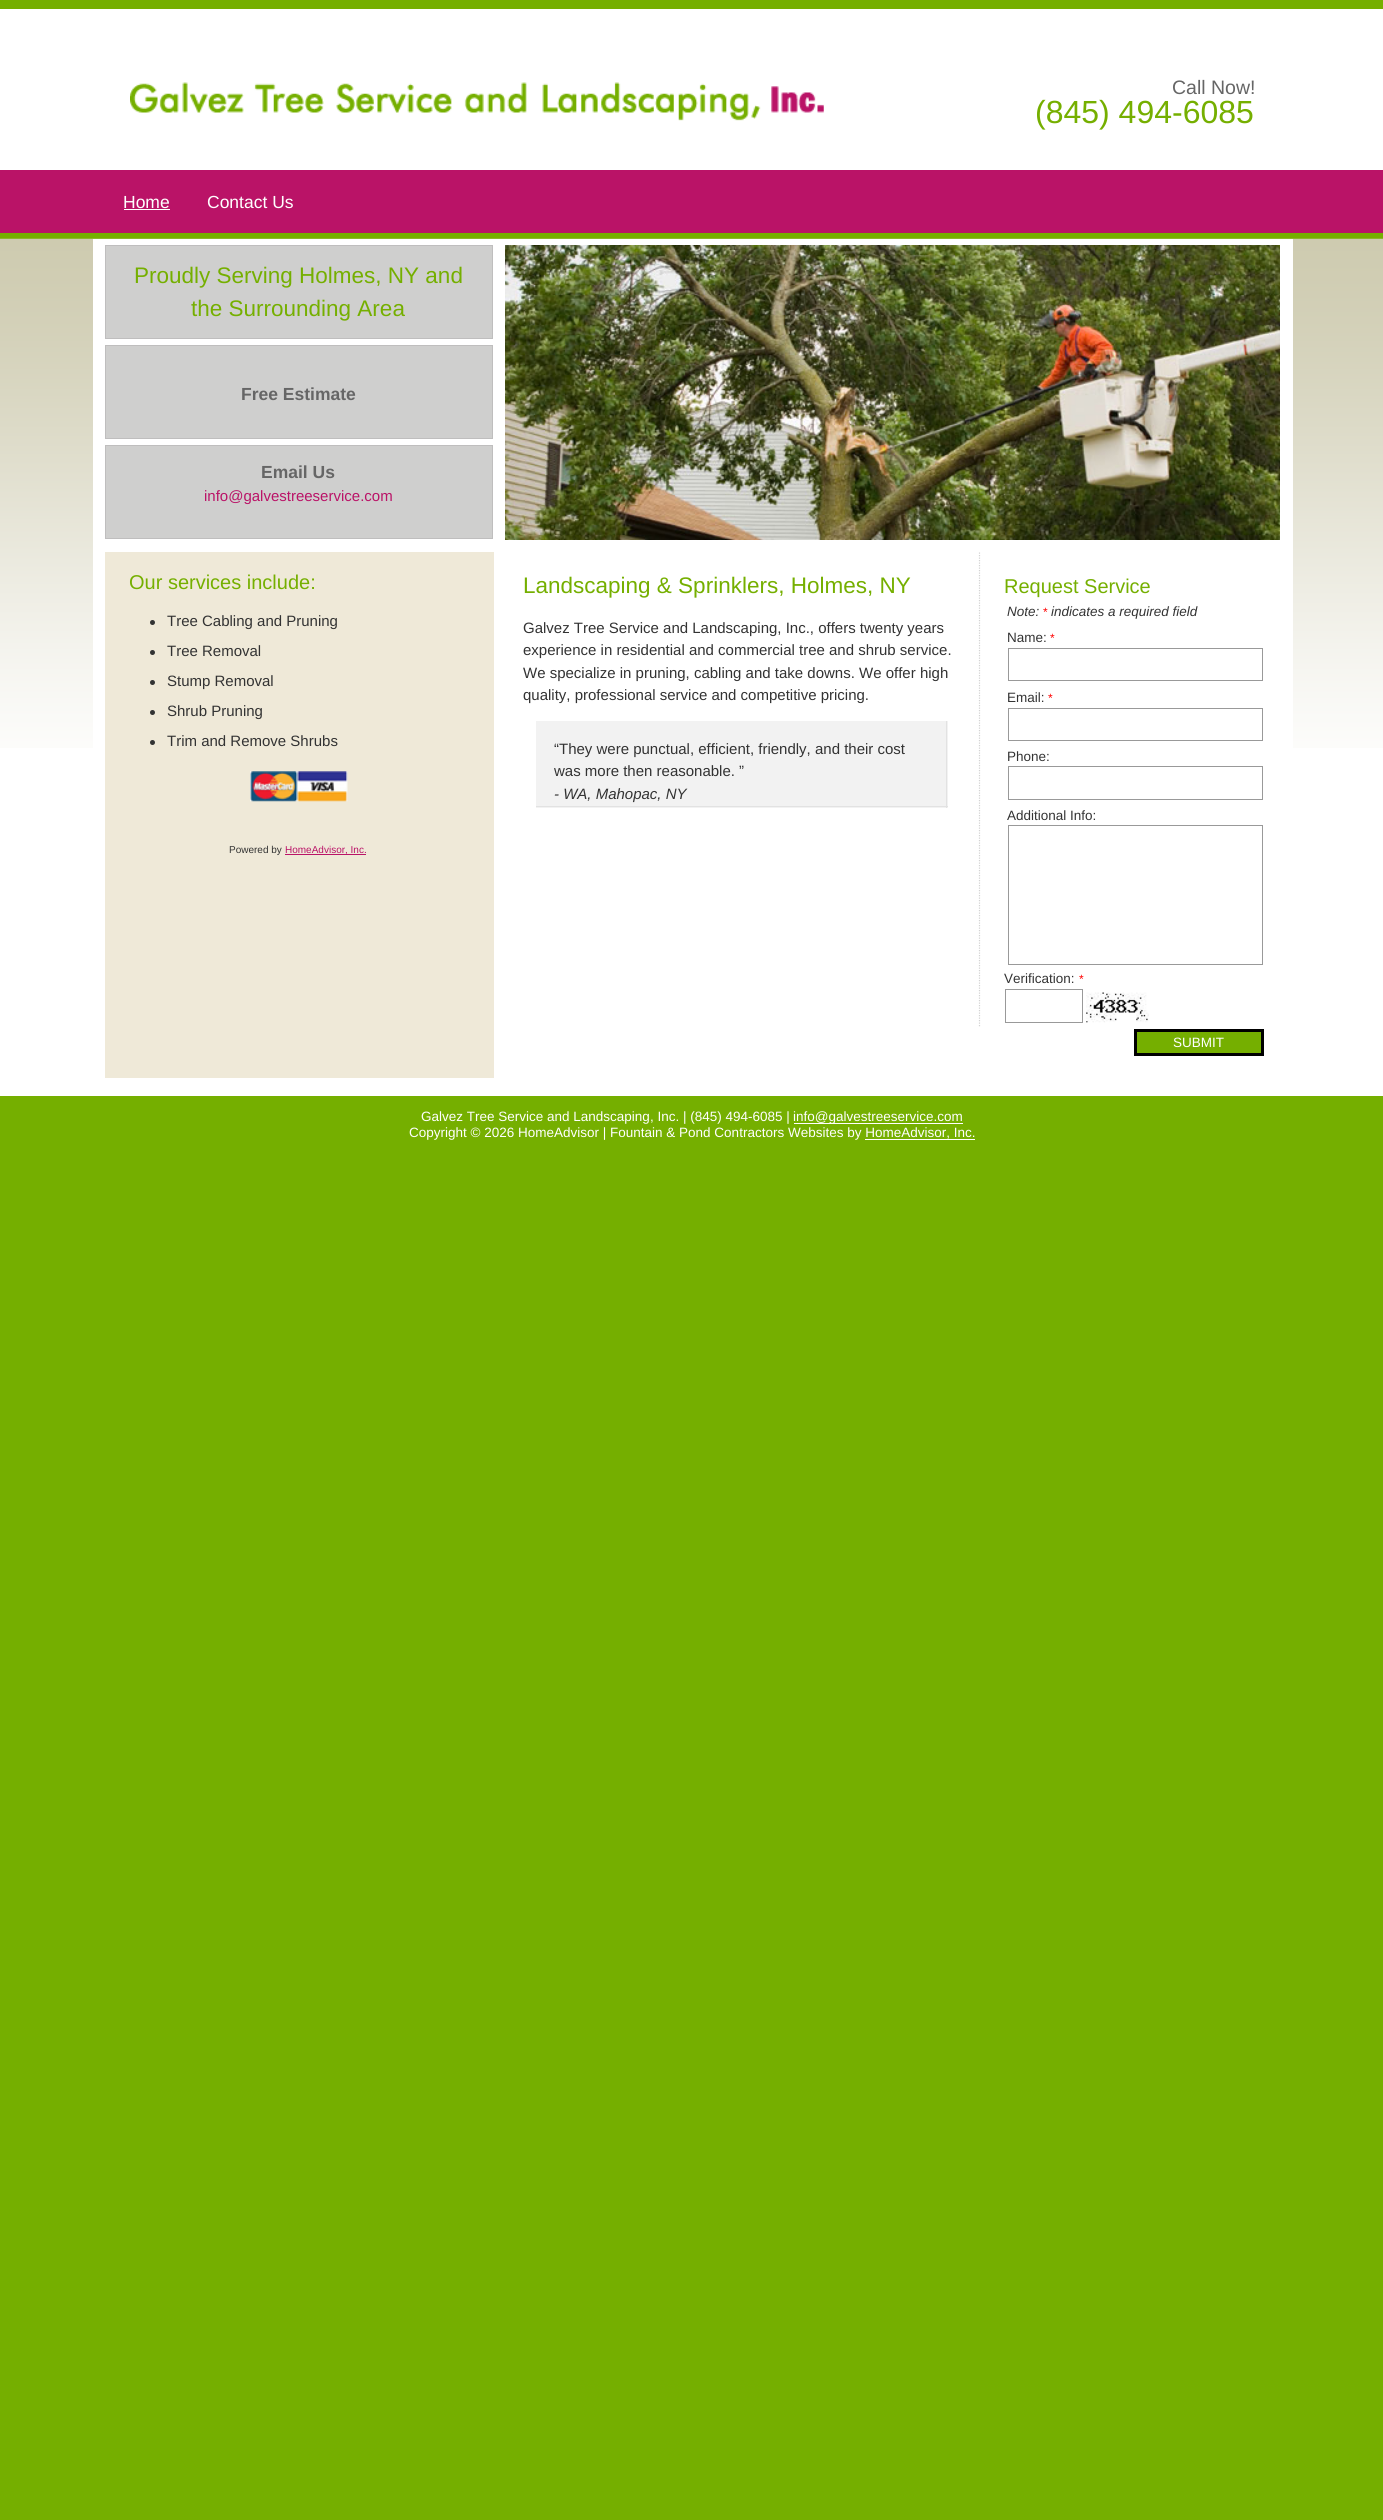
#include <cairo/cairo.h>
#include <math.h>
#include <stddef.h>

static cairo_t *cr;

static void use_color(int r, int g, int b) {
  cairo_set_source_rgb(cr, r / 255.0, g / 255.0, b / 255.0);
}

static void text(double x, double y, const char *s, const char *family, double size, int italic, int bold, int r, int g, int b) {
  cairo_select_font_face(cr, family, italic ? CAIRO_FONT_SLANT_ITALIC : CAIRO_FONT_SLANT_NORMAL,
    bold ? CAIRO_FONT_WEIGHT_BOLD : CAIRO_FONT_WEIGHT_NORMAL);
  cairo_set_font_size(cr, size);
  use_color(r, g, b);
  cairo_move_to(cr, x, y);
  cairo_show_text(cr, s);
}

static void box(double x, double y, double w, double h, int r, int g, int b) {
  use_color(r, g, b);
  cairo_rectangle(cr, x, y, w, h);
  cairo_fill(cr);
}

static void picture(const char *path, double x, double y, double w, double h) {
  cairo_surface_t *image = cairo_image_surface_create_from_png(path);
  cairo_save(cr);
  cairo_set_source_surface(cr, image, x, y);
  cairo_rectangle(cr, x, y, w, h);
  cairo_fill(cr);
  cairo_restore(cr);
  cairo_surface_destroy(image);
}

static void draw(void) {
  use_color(117, 175, 0);
  cairo_paint(cr);
  box(0, 9, 1383, 161, 255, 255, 255);
  picture("img_01.png", 130, 82, 694, 39);
  box(0, 170, 1383, 63, 186, 19, 103);
  box(124, 209, 46, 1, 255, 255, 255);
  box(0, 748, 1383, 348, 255, 255, 255);
  picture("img_02.png", 0, 238, 1383, 510);
  box(93, 239, 1200, 509, 255, 255, 255);
  box(105, 552, 389, 526, 239, 233, 216);
  use_color(207, 207, 206);
  cairo_rectangle(cr, 105.5, 245.5, 387, 93);
  cairo_fill_preserve(cr);
  use_color(191, 190, 190);
  cairo_set_line_width(cr, 1);
  cairo_stroke(cr);
  use_color(207, 207, 206);
  cairo_rectangle(cr, 105.5, 345.5, 387, 93);
  cairo_fill_preserve(cr);
  use_color(191, 190, 190);
  cairo_stroke(cr);
  use_color(207, 207, 206);
  cairo_rectangle(cr, 105.5, 445.5, 387, 93);
  cairo_fill_preserve(cr);
  use_color(191, 190, 190);
  cairo_stroke(cr);
  use_color(51, 51, 51);
  cairo_arc(cr, 152.5, 622.5, 2.5, 0, 2 * M_PI);
  cairo_fill(cr);
  cairo_arc(cr, 152.5, 652.5, 2.5, 0, 2 * M_PI);
  cairo_fill(cr);
  cairo_arc(cr, 152.5, 682.5, 2.5, 0, 2 * M_PI);
  cairo_fill(cr);
  cairo_arc(cr, 152.5, 712.5, 2.5, 0, 2 * M_PI);
  cairo_fill(cr);
  cairo_arc(cr, 152.5, 742.5, 2.5, 0, 2 * M_PI);
  cairo_fill(cr);
  picture("img_03.png", 250, 771, 98, 31);
  box(285, 854, 81, 1, 186, 19, 103);
  picture("img_04.png", 505, 245, 775, 295);
  cairo_new_path(cr);
  cairo_move_to(cr, 979.5, 552.5);
  cairo_line_to(cr, 979.5, 1027.5);
  use_color(210, 210, 210);
  cairo_set_line_width(cr, 1.2);
  cairo_set_dash(cr, (double[]){1.25, 1.25}, 2, 0);
  cairo_stroke(cr);
  box(536, 721, 412, 87, 242, 242, 242);
  box(946, 721, 1, 87, 226, 226, 226);
  box(536, 806, 412, 1, 226, 226, 226);
  cairo_rectangle(cr, 1008.5, 648.5, 254, 32);
  use_color(153, 153, 153);
  cairo_set_line_width(cr, 1);
  cairo_set_dash(cr, NULL, 0, 0);
  cairo_stroke(cr);
  cairo_rectangle(cr, 1008.5, 708.5, 254, 32);
  cairo_stroke(cr);
  cairo_rectangle(cr, 1008.5, 766.5, 254, 33);
  cairo_stroke(cr);
  cairo_rectangle(cr, 1008.5, 825.5, 254, 139);
  cairo_stroke(cr);
  cairo_rectangle(cr, 1005.5, 989.5, 77, 33);
  cairo_stroke(cr);
  picture("img_05.png", 1086, 992, 63, 31);
  use_color(117, 175, 0);
  cairo_rectangle(cr, 1135.5, 1030.5, 127, 24);
  cairo_fill_preserve(cr);
  use_color(0, 0, 0);
  cairo_set_line_width(cr, 3);
  cairo_stroke(cr);
  box(794, 1123, 169, 1, 255, 255, 255);
  box(865, 1139, 110, 1, 255, 255, 255);
  text(1172, 94, "Call Now!", "Liberation Sans", 19.5, 0, 0, 102, 102, 102);
  text(1035, 123, "(845) 494-6085", "Liberation Sans", 32, 0, 0, 117, 175, 0);
  text(123, 208, "Home", "Liberation Sans", 17.5, 0, 0, 255, 255, 255);
  text(207, 208, "Contact Us", "Liberation Sans", 17.5, 0, 0, 255, 255, 255);
  text(134, 283, "Proudly Serving Holmes, NY and", "Liberation Sans", 22.5, 0, 0, 117, 175, 0);
  text(191, 316, "the Surrounding Area", "Liberation Sans", 22.5, 0, 0, 117, 175, 0);
  text(241, 400, "Free Estimate", "Liberation Sans", 17.5, 0, 1, 102, 102, 102);
  text(261, 478, "Email Us", "Liberation Sans", 17.5, 0, 1, 102, 102, 102);
  text(204, 501, "info@galvestreeservice.com", "Liberation Sans", 15, 0, 0, 186, 19, 103);
  text(129, 589, "Our services include:", "Liberation Sans", 20, 0, 0, 117, 175, 0);
  text(167, 626, "Tree Cabling and Pruning", "Liberation Sans", 15, 0, 0, 51, 51, 51);
  text(167, 656, "Tree Removal", "Liberation Sans", 15, 0, 0, 51, 51, 51);
  text(167, 686, "Stump Removal", "Liberation Sans", 15, 0, 0, 51, 51, 51);
  text(167, 716, "Shrub Pruning", "Liberation Sans", 15, 0, 0, 51, 51, 51);
  text(167, 746, "Trim and Remove Shrubs", "Liberation Sans", 15, 0, 0, 51, 51, 51);
  text(229, 853, "Powered by", "Liberation Sans", 10, 0, 0, 51, 51, 51);
  text(285, 853, "HomeAdvisor, Inc.", "Liberation Sans", 10, 0, 0, 186, 19, 103);
  text(523, 593, "Landscaping & Sprinklers, Holmes, NY", "Liberation Sans", 22.5, 0, 0, 117, 175, 0);
  text(523, 633, "Galvez Tree Service and Landscaping, Inc., offers twenty years", "Liberation Sans", 15, 0, 0, 51, 51, 51);
  text(523, 655, "experience in residential and commercial tree and shrub service.", "Liberation Sans", 15, 0, 0, 51, 51, 51);
  text(523, 678, "We specialize in pruning, cabling and take downs. We offer high", "Liberation Sans", 15, 0, 0, 51, 51, 51);
  text(523, 700, "quality, professional service and competitive pricing.", "Liberation Sans", 15, 0, 0, 51, 51, 51);
  text(554, 754, "“They were punctual, efficient, friendly, and their cost", "Liberation Sans", 15, 0, 0, 51, 51, 51);
  text(554, 776, "was more then reasonable. ”", "Liberation Sans", 15, 0, 0, 51, 51, 51);
  text(554, 799, "- WA, Mahopac, NY", "Liberation Sans", 15, 1, 0, 51, 51, 51);
  text(1004, 593, "Request Service", "Liberation Sans", 20, 0, 0, 117, 175, 0);
  text(1007, 616, "Note:", "Liberation Sans", 13.5, 1, 0, 51, 51, 51);
  text(1043, 616, "*", "Liberation Sans", 12, 0, 0, 255, 0, 0);
  text(1051, 616, "indicates a required field", "Liberation Sans", 13.5, 1, 0, 51, 51, 51);
  text(1007, 642, "Name:", "Liberation Sans", 13.5, 0, 0, 51, 51, 51);
  text(1050, 642, "*", "Liberation Sans", 12, 0, 0, 255, 0, 0);
  text(1007, 702, "Email:", "Liberation Sans", 13.5, 0, 0, 51, 51, 51);
  text(1048, 702, "*", "Liberation Sans", 12, 0, 0, 255, 0, 0);
  text(1007, 761, "Phone:", "Liberation Sans", 13.5, 0, 0, 51, 51, 51);
  text(1007, 820, "Additional Info:", "Liberation Sans", 13.5, 0, 0, 51, 51, 51);
  text(1004, 983, "Verification:", "Liberation Sans", 13.5, 0, 0, 51, 51, 51);
  text(1079, 983, "*", "Liberation Sans", 12, 0, 0, 255, 0, 0);
  text(1173, 1047, "SUBMIT", "Liberation Sans", 13.5, 0, 0, 255, 255, 255);
  text(421, 1121, "Galvez Tree Service and Landscaping, Inc. | (845) 494-6085 |", "Liberation Sans", 13.5, 0, 0, 255, 255, 255);
  text(793, 1121, "info@galvestreeservice.com", "Liberation Sans", 13.5, 0, 0, 255, 255, 255);
  text(409, 1137, "Copyright © 2026 HomeAdvisor | Fountain & Pond Contractors Websites by HomeAdvisor, Inc.", "Liberation Sans", 13.5, 0, 0, 255, 255, 255);
}

int main(void) {
  cairo_surface_t *surface = cairo_image_surface_create(CAIRO_FORMAT_RGB24, 1383, 2520);
  cr = cairo_create(surface);
  cairo_font_options_t *options = cairo_font_options_create();
  cairo_font_options_set_hint_metrics(options, CAIRO_HINT_METRICS_OFF);
  cairo_font_options_set_hint_style(options, CAIRO_HINT_STYLE_NONE);
  cairo_set_font_options(cr, options);
  cairo_set_miter_limit(cr, 4);
  draw();
  cairo_surface_write_to_png(surface, "out.png");
  cairo_font_options_destroy(options);
  cairo_destroy(cr);
  cairo_surface_destroy(surface);
  return 0;
}
